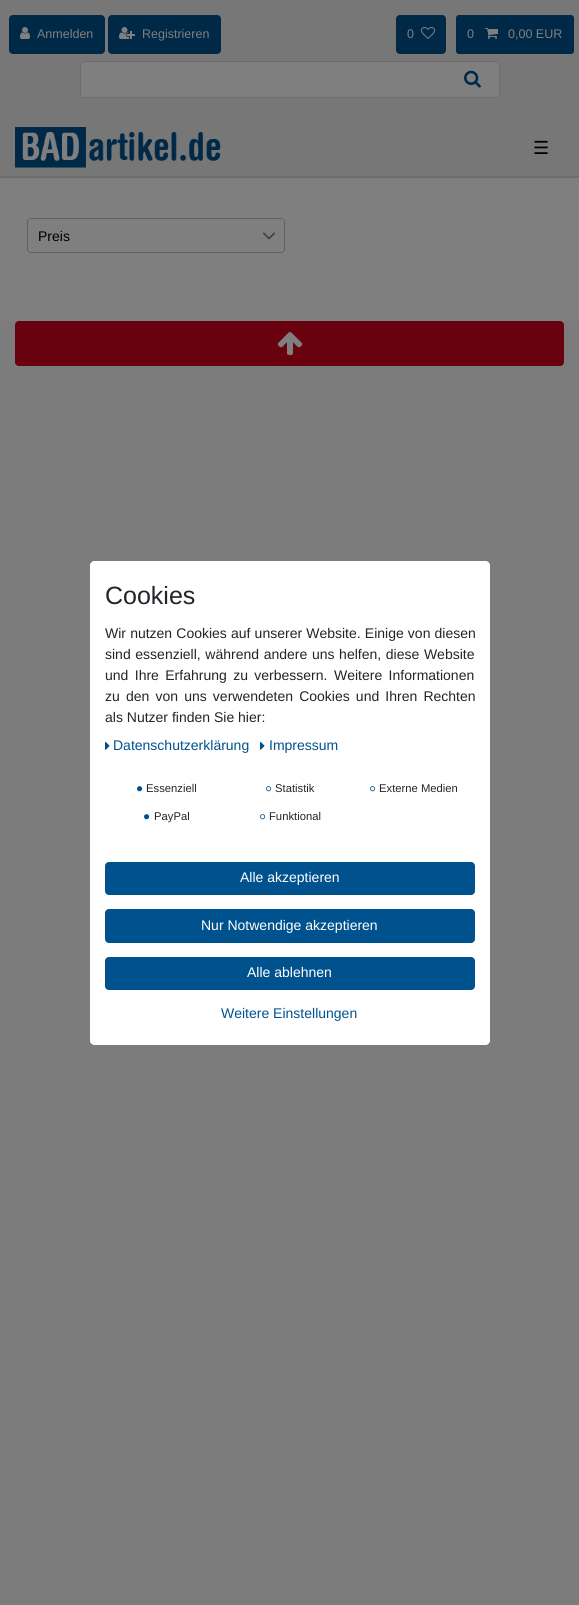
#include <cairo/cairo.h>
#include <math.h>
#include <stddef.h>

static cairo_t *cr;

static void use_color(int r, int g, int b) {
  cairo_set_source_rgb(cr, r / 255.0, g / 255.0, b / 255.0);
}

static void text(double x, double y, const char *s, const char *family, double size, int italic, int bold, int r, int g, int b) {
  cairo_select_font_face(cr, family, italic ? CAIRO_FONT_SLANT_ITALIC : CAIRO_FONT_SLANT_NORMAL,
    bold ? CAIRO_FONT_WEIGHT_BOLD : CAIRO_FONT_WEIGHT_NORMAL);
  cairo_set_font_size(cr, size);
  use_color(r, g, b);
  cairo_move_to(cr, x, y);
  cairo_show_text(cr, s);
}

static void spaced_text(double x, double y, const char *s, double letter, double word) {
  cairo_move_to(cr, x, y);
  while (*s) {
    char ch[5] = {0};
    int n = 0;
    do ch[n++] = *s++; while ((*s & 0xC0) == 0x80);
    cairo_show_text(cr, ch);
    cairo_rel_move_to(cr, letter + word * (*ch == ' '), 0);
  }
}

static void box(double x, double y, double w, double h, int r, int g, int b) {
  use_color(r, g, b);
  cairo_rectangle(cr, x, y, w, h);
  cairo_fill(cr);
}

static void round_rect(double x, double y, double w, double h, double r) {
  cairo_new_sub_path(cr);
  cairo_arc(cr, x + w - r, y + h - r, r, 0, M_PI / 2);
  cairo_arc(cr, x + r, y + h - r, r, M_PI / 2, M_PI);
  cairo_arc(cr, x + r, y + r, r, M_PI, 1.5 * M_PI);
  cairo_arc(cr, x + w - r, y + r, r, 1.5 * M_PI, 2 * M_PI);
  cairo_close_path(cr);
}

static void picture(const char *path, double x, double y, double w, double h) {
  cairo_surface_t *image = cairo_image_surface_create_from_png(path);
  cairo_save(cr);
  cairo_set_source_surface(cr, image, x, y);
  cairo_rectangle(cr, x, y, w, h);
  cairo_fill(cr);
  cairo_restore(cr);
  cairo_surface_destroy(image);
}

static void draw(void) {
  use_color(248, 249, 250);
  cairo_paint(cr);
  box(0, 178, 579, 143, 255, 255, 255);
  box(0, 0, 579, 176, 239, 239, 239);
  use_color(0, 82, 143);
  round_rect(9, 15, 96, 39, 4);
  cairo_fill(cr);
  picture("img_01.png", 20, 27, 10, 12);
  round_rect(108, 15, 113, 39, 4);
  cairo_fill(cr);
  picture("img_02.png", 119, 27, 16, 12);
  round_rect(396, 15, 50, 39, 4);
  cairo_fill(cr);
  picture("img_03.png", 421, 27, 14, 12);
  round_rect(456, 15, 118, 39, 3);
  cairo_fill(cr);
  picture("img_04.png", 485, 28, 13, 11);
  use_color(255, 255, 255);
  cairo_new_path(cr);
  cairo_move_to(cr, 84, 61);
  cairo_line_to(cr, 447, 61);
  cairo_line_to(cr, 447, 98);
  cairo_line_to(cr, 84, 98);
  cairo_curve_to(cr, 82, 98, 80, 96, 80, 94);
  cairo_line_to(cr, 80, 65);
  cairo_curve_to(cr, 80, 63, 82, 61, 84, 61);
  cairo_close_path(cr);
  cairo_fill(cr);
  use_color(218, 218, 218);
  cairo_set_fill_rule(cr, CAIRO_FILL_RULE_EVEN_ODD);
  cairo_new_path(cr);
  cairo_move_to(cr, 84, 61);
  cairo_line_to(cr, 447, 61);
  cairo_line_to(cr, 447, 98);
  cairo_line_to(cr, 84, 98);
  cairo_curve_to(cr, 82, 98, 80, 96, 80, 94);
  cairo_line_to(cr, 80, 65);
  cairo_curve_to(cr, 80, 63, 82, 61, 84, 61);
  cairo_close_path(cr);
  cairo_move_to(cr, 84, 62);
  cairo_line_to(cr, 447, 62);
  cairo_line_to(cr, 447, 97);
  cairo_line_to(cr, 84, 97);
  cairo_curve_to(cr, 82, 97, 81, 96, 81, 94);
  cairo_line_to(cr, 81, 65);
  cairo_curve_to(cr, 81, 63, 82, 62, 84, 62);
  cairo_close_path(cr);
  cairo_fill(cr);
  use_color(255, 255, 255);
  cairo_new_path(cr);
  cairo_move_to(cr, 447, 61);
  cairo_line_to(cr, 496, 61);
  cairo_curve_to(cr, 498, 61, 500, 63, 500, 65);
  cairo_line_to(cr, 500, 94);
  cairo_curve_to(cr, 500, 96, 498, 98, 496, 98);
  cairo_line_to(cr, 447, 98);
  cairo_close_path(cr);
  cairo_fill(cr);
  use_color(218, 218, 218);
  cairo_new_path(cr);
  cairo_move_to(cr, 447, 61);
  cairo_line_to(cr, 496, 61);
  cairo_curve_to(cr, 498, 61, 500, 63, 500, 65);
  cairo_line_to(cr, 500, 94);
  cairo_curve_to(cr, 500, 96, 498, 98, 496, 98);
  cairo_line_to(cr, 447, 98);
  cairo_close_path(cr);
  cairo_move_to(cr, 447, 62);
  cairo_line_to(cr, 496, 62);
  cairo_curve_to(cr, 498, 62, 499, 63, 499, 65);
  cairo_line_to(cr, 499, 94);
  cairo_curve_to(cr, 499, 96, 498, 97, 496, 97);
  cairo_line_to(cr, 447, 97);
  cairo_close_path(cr);
  cairo_fill(cr);
  picture("img_05.png", 464, 70, 17, 18);
  box(0, 176, 579, 2, 218, 218, 218);
  picture("img_06.png", 15, 127, 206, 41);
  round_rect(27.5, 218.5, 257, 34, 3.5);
  use_color(191, 191, 191);
  cairo_set_line_width(cr, 1);
  cairo_stroke(cr);
  use_color(255, 255, 255);
  round_rect(28, 219, 256, 33, 3);
  cairo_fill(cr);
  cairo_new_path(cr);
  cairo_move_to(cr, 264, 233.5);
  cairo_line_to(cr, 269, 238.5);
  cairo_line_to(cr, 274, 233.5);
  use_color(128, 128, 128);
  cairo_set_line_width(cr, 1.7);
  cairo_set_line_cap(cr, CAIRO_LINE_CAP_SQUARE);
  cairo_set_line_join(cr, CAIRO_LINE_JOIN_ROUND);
  cairo_stroke(cr);
  use_color(212, 2, 29);
  round_rect(15.5, 321.5, 548, 44, 3.5);
  cairo_fill_preserve(cr);
  cairo_set_line_width(cr, 1);
  cairo_set_line_cap(cr, CAIRO_LINE_CAP_BUTT);
  cairo_set_line_join(cr, CAIRO_LINE_JOIN_MITER);
  cairo_stroke(cr);
  picture("img_07.png", 277, 332, 26, 23);
  text(37, 38, "Anmelden", "Liberation Sans", 12.5, 0, 0, 255, 255, 255);
  text(142, 38, "Registrieren", "Liberation Sans", 12.5, 0, 0, 255, 255, 255);
  text(407, 38, "0", "Liberation Sans", 12.5, 0, 0, 255, 255, 255);
  text(467, 38, "0", "Liberation Sans", 12.5, 0, 0, 255, 255, 255);
  text(508, 38, "0,00 EUR", "Liberation Sans", 12.5, 0, 0, 255, 255, 255);
  text(533, 154, "☰", "DejaVu Sans", 18, 0, 0, 0, 0, 0);
  text(38, 241, "Preis", "Liberation Sans", 14, 0, 0, 0, 0, 0);
  round_rect(-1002, -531, 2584, 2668, 1097);
  cairo_set_source_rgba(cr, 0, 0, 0, 0.5);
  cairo_set_line_width(cr, 2184);
  cairo_stroke(cr);
  use_color(255, 255, 255);
  round_rect(90, 561, 400, 484, 5);
  cairo_fill(cr);
  text(105, 604, "Cookies", "Liberation Sans", 25, 0, 0, 33, 37, 41);
  cairo_set_font_size(cr, 14);
  spaced_text(105, 638, "Wir nutzen Cookies auf unserer Website. Einige von diesen", 0, 0.25);
  spaced_text(105, 659, "sind essenziell, während andere uns helfen, diese Website", 0, 0.75);
  spaced_text(105, 680, "und Ihre Erfahrung zu verbessern.", 0, 2.5);
  spaced_text(334, 680, "Weitere Informationen", 0, 2.5);
  spaced_text(105, 701, "zu den von uns verwendeten Cookies und Ihren Rechten", 0, 2.25);
  text(105, 722, "als Nutzer finden Sie hier:", "Liberation Sans", 14, 0, 0, 33, 37, 41);
  picture("img_08.png", 105, 741, 5, 9);
  text(113, 750, "Datenschutzerklärung", "Liberation Sans", 14, 0, 0, 0, 82, 143);
  picture("img_08.png", 260, 741, 5, 9);
  text(269, 750, "Impressum", "Liberation Sans", 14, 0, 0, 0, 82, 143);
  picture("img_09.png", 137, 786, 6, 6);
  text(146, 792, "Essenziell", "Liberation Sans", 11.25, 0, 0, 33, 37, 41);
  picture("img_10.png", 266, 786, 6, 6);
  text(275, 792, "Statistik", "Liberation Sans", 11.25, 0, 0, 33, 37, 41);
  picture("img_10.png", 370, 786, 6, 6);
  text(379, 792, "Externe Medien", "Liberation Sans", 11.25, 0, 0, 33, 37, 41);
  picture("img_09.png", 144, 814, 6, 6);
  text(154, 820, "PayPal", "Liberation Sans", 11.25, 0, 0, 33, 37, 41);
  picture("img_10.png", 260, 814, 6, 6);
  text(269, 820, "Funktional", "Liberation Sans", 11.25, 0, 0, 33, 37, 41);
  use_color(0, 82, 143);
  round_rect(105.5, 862.5, 369, 32, 3.5);
  cairo_fill_preserve(cr);
  cairo_set_line_width(cr, 1);
  cairo_stroke(cr);
  text(240, 882, "Alle akzeptieren", "Liberation Sans", 14, 0, 0, 255, 255, 255);
  use_color(0, 82, 143);
  round_rect(105.5, 909.5, 369, 33, 3.5);
  cairo_fill_preserve(cr);
  cairo_stroke(cr);
  text(201, 930, "Nur Notwendige akzeptieren", "Liberation Sans", 14, 0, 0, 255, 255, 255);
  use_color(0, 82, 143);
  round_rect(105.5, 957.5, 369, 32, 3.5);
  cairo_fill_preserve(cr);
  cairo_stroke(cr);
  text(247, 977, "Alle ablehnen", "Liberation Sans", 14, 0, 0, 255, 255, 255);
  text(221, 1018, "Weitere Einstellungen", "Liberation Sans", 14, 0, 0, 0, 82, 143);
}

int main(void) {
  cairo_surface_t *surface = cairo_image_surface_create(CAIRO_FORMAT_RGB24, 579, 1605);
  cr = cairo_create(surface);
  cairo_font_options_t *options = cairo_font_options_create();
  cairo_font_options_set_hint_metrics(options, CAIRO_HINT_METRICS_OFF);
  cairo_font_options_set_hint_style(options, CAIRO_HINT_STYLE_NONE);
  cairo_set_font_options(cr, options);
  cairo_set_miter_limit(cr, 4);
  draw();
  cairo_surface_write_to_png(surface, "out.png");
  cairo_font_options_destroy(options);
  cairo_destroy(cr);
  cairo_surface_destroy(surface);
  return 0;
}
